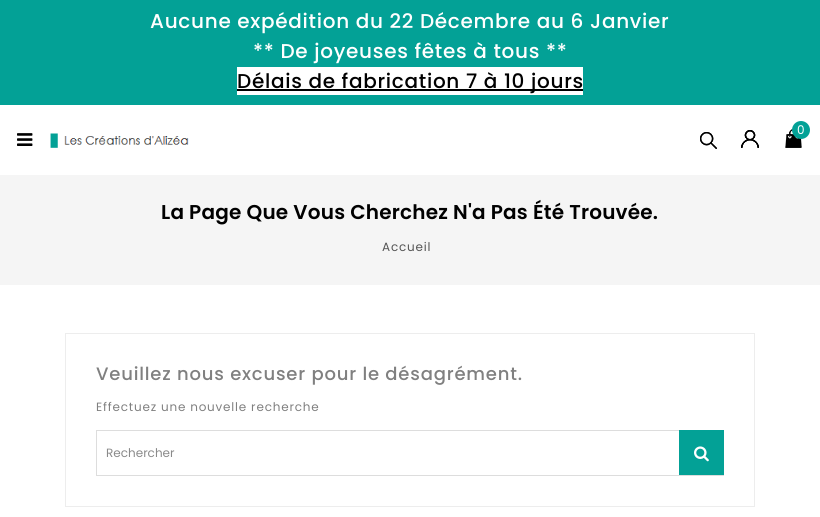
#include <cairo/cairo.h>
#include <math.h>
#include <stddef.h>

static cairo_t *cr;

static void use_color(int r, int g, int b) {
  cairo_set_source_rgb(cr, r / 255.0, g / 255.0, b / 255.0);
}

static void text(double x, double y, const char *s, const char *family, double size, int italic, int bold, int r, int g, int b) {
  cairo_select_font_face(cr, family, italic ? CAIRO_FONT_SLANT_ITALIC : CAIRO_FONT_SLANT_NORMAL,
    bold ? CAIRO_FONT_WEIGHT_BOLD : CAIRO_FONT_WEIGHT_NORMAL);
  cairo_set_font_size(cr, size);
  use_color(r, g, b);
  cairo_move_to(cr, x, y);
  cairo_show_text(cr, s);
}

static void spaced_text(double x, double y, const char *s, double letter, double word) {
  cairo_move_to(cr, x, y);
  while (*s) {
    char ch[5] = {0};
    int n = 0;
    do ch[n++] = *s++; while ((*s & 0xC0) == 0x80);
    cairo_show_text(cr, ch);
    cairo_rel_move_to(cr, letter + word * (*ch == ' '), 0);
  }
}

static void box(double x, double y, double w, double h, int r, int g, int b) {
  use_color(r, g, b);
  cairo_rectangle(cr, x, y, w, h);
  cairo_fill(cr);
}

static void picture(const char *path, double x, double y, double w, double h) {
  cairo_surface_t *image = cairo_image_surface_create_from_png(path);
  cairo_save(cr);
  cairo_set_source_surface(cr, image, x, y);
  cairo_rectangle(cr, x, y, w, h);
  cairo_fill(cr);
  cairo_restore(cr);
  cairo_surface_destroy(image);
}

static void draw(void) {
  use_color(255, 255, 255);
  cairo_paint(cr);
  box(0, 0, 820, 105, 3, 161, 150);
  box(237, 67, 346, 28, 255, 255, 255);
  box(237, 89, 346, 2, 0, 0, 0);
  picture("img_01.png", 17, 133, 16, 13);
  picture("img_02.png", 50, 133, 139, 15);
  picture("img_03.png", 700, 132, 17, 17);
  picture("img_04.png", 741, 130, 18, 18);
  picture("img_05.png", 785, 129, 17, 19);
  use_color(3, 161, 150);
  cairo_arc(cr, 801, 130, 9, 0, 2 * M_PI);
  cairo_fill(cr);
  box(0, 175, 820, 110, 245, 245, 245);
  cairo_rectangle(cr, 65.5, 333.5, 689, 173);
  use_color(237, 237, 237);
  cairo_set_line_width(cr, 1);
  cairo_stroke(cr);
  cairo_rectangle(cr, 96.5, 430.5, 627, 45);
  use_color(221, 221, 221);
  cairo_stroke(cr);
  box(679, 430, 45, 45, 3, 161, 150);
  picture("img_06.png", 694, 446, 15, 16);
  cairo_select_font_face(cr, "Poppins Medium", CAIRO_FONT_SLANT_NORMAL, CAIRO_FONT_WEIGHT_NORMAL);
  cairo_set_font_size(cr, 20);
  use_color(255, 255, 255);
  spaced_text(150, 28, "Aucune expédition du 22 Décembre au 6 Janvier", 0.7, 0);
  spaced_text(253, 58, "** De joyeuses fêtes à tous **", 0.7, 0);
  use_color(0, 0, 0);
  spaced_text(237, 88, "Délais de fabrication 7 à 10 jours", 0.7, 0);
  cairo_select_font_face(cr, "Poppins", CAIRO_FONT_SLANT_NORMAL, CAIRO_FONT_WEIGHT_NORMAL);
  cairo_set_font_size(cr, 12);
  use_color(255, 255, 255);
  spaced_text(797, 134, "0", 0.8, 0);
  cairo_select_font_face(cr, "Poppins SemiBold", CAIRO_FONT_SLANT_NORMAL, CAIRO_FONT_WEIGHT_NORMAL);
  cairo_set_font_size(cr, 20);
  use_color(0, 0, 0);
  spaced_text(161, 219, "La Page Que Vous Cherchez N'a Pas Été Trouvée.", 0.2, 0);
  cairo_select_font_face(cr, "Poppins", CAIRO_FONT_SLANT_NORMAL, CAIRO_FONT_WEIGHT_NORMAL);
  cairo_set_font_size(cr, 12);
  use_color(85, 85, 85);
  spaced_text(382, 251, "Accueil", 0.8, 0);
  cairo_select_font_face(cr, "Poppins Medium", CAIRO_FONT_SLANT_NORMAL, CAIRO_FONT_WEIGHT_NORMAL);
  cairo_set_font_size(cr, 18);
  use_color(128, 128, 128);
  spaced_text(96, 380, "Veuillez nous excuser pour le désagrément.", 0.8, 0);
  cairo_select_font_face(cr, "Poppins", CAIRO_FONT_SLANT_NORMAL, CAIRO_FONT_WEIGHT_NORMAL);
  cairo_set_font_size(cr, 12);
  spaced_text(96, 411, "Effectuez une nouvelle recherche", 0.8, 0);
  text(106, 457, "Rechercher", "Poppins", 12, 0, 0, 138, 138, 138);
}

int main(void) {
  cairo_surface_t *surface = cairo_image_surface_create(CAIRO_FORMAT_RGB24, 820, 517);
  cr = cairo_create(surface);
  cairo_font_options_t *options = cairo_font_options_create();
  cairo_font_options_set_hint_metrics(options, CAIRO_HINT_METRICS_OFF);
  cairo_font_options_set_hint_style(options, CAIRO_HINT_STYLE_NONE);
  cairo_set_font_options(cr, options);
  cairo_set_miter_limit(cr, 4);
  draw();
  cairo_surface_write_to_png(surface, "out.png");
  cairo_font_options_destroy(options);
  cairo_destroy(cr);
  cairo_surface_destroy(surface);
  return 0;
}
